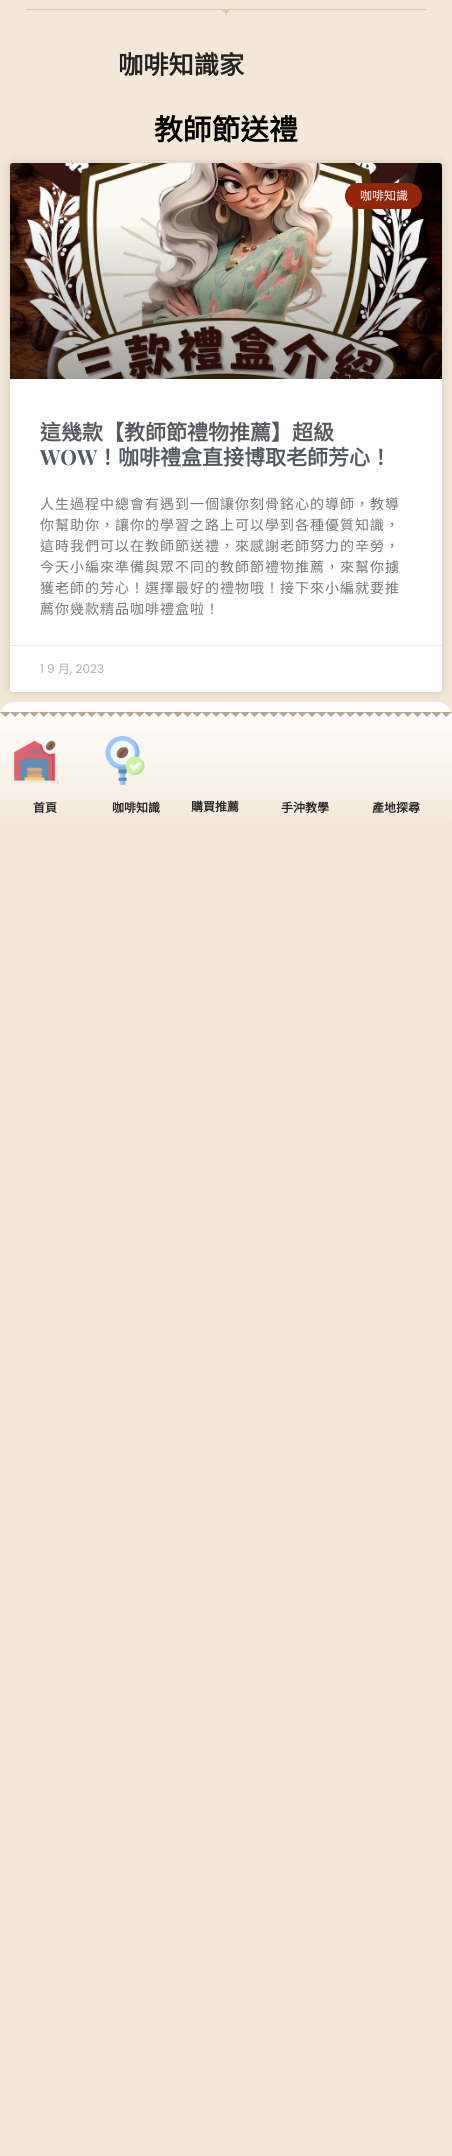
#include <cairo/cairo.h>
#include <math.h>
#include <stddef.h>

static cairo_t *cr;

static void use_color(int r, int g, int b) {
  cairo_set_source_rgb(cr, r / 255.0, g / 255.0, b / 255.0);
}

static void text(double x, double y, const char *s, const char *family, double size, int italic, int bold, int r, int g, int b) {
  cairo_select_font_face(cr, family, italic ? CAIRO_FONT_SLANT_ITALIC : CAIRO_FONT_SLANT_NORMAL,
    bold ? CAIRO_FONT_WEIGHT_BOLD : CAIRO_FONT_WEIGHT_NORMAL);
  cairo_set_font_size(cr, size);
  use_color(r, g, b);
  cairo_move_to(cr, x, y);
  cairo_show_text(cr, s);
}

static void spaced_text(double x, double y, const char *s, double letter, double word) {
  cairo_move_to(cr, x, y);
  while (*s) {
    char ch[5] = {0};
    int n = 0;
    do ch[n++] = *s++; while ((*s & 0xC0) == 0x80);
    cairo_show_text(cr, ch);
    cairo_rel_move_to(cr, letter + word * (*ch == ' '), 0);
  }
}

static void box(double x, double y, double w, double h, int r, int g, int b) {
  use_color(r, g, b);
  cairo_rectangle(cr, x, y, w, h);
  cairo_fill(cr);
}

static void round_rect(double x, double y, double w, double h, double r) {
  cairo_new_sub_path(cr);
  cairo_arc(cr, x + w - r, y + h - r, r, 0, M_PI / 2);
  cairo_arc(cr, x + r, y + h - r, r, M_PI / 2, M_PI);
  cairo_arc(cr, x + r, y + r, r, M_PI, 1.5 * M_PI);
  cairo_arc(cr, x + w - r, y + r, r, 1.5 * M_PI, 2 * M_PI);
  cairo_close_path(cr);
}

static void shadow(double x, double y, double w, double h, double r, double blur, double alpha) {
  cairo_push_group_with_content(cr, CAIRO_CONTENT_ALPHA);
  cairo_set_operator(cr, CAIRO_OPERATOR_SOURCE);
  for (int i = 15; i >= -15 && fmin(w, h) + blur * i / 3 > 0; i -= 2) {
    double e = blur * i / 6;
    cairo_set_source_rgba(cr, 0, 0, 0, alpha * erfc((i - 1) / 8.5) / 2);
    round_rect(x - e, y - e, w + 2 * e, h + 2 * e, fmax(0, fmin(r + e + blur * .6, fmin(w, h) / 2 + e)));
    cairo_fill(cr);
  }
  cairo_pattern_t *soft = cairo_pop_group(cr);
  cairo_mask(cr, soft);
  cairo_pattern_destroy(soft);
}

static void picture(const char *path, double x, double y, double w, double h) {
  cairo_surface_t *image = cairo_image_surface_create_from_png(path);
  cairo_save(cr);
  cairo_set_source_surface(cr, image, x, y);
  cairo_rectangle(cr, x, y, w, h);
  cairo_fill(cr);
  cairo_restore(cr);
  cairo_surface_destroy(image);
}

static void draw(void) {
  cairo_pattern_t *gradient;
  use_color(243, 232, 215);
  cairo_paint(cr);
  use_color(219, 202, 169);
  cairo_new_path(cr);
  cairo_move_to(cr, 26, 9);
  cairo_line_to(cr, 26, 10);
  cairo_line_to(cr, 221, 10);
  cairo_curve_to(cr, 224, 11, 226, 14, 226, 17);
  cairo_curve_to(cr, 226, 14, 228, 11, 231, 10);
  cairo_line_to(cr, 426, 10);
  cairo_line_to(cr, 426, 9);
  cairo_close_path(cr);
  cairo_fill(cr);
  use_color(0, 0, 0);
  shadow(10, 163, 432, 529, 3, 5, 0.15);
  use_color(255, 255, 255);
  round_rect(10, 163, 432, 529, 3);
  cairo_fill(cr);
  picture("img_01.png", 10, 163, 432, 216);
  gradient = cairo_pattern_create_linear(226, 379, 226, 163);
  cairo_pattern_add_color_stop_rgba(gradient, 0, 0, 0, 0, 0.35);
  cairo_pattern_add_color_stop_rgba(gradient, 0.75, 0, 0, 0, 0);
  cairo_set_source(cr, gradient);
  cairo_pattern_destroy(gradient);
  cairo_rectangle(cr, 10, 227, 432, 152);
  cairo_fill(cr);
  use_color(146, 38, 8);
  round_rect(345, 183, 77, 26, 13);
  cairo_fill(cr);
  box(10, 645, 432, 1, 234, 234, 234);
  gradient = cairo_pattern_create_linear(226, 702, 226, 832);
  cairo_pattern_add_color_stop_rgba(gradient, 0, 1, 1, 1, 1);
  cairo_pattern_add_color_stop_rgba(gradient, 1, 0.953, 0.91, 0.843, 1);
  cairo_set_source(cr, gradient);
  cairo_pattern_destroy(gradient);
  round_rect(0, 702, 452, 130, 15);
  cairo_fill(cr);
  picture("img_02.png", 0, 712, 452, 5);
  picture("img_03.png", 10, 737, 49, 47);
  picture("img_04.png", 105, 736, 40, 49);
  text(118, 74, "咖啡知識家", "Noto Sans CJK TC", 25.25, 0, 1, 34, 34, 34);
  text(154, 140, "教師節送禮", "Noto Sans CJK TC", 28.75, 0, 1, 0, 0, 0);
  text(360, 200, "咖啡知識", "Noto Sans CJK TC", 12, 0, 0, 255, 255, 255);
  text(40, 440, "這幾款【教師節禮物推薦】超級", "Noto Sans CJK TC", 21, 0, 1, 84, 89, 95);
  text(40, 465, "WOW", "Playfair Display", 21, 0, 1, 84, 89, 95);
  text(97, 465, "！咖啡禮盒直接博取老師芳心！", "Noto Sans CJK TC", 21, 0, 1, 84, 89, 95);
  cairo_select_font_face(cr, "Noto Sans CJK TC", CAIRO_FONT_SLANT_NORMAL, CAIRO_FONT_WEIGHT_NORMAL);
  cairo_set_font_size(cr, 14);
  use_color(119, 119, 119);
  spaced_text(40, 509, "人生過程中總會有遇到一個讓你刻骨銘心的導師，教導", 1, 0);
  spaced_text(40, 530, "你幫助你，讓你的學習之路上可以學到各種優質知識，", 1, 0);
  spaced_text(40, 551, "這時我們可以在教師節送禮，來感謝老師努力的辛勞，", 1, 0);
  spaced_text(40, 572, "今天小編來準備與眾不同的教師節禮物推薦，來幫你擄", 1, 0);
  spaced_text(40, 593, "獲老師的芳心！選擇最好的禮物哦！接下來小編就要推", 1, 0);
  spaced_text(40, 614, "薦你幾款精品咖啡禮盒啦！", 1, 0);
  text(40, 673, "1 9", "Poppins", 12, 0, 0, 173, 173, 173);
  text(58, 673, "月", "Noto Sans CJK TC", 12, 0, 0, 173, 173, 173);
  text(70, 673, ", 2023", "Poppins", 12, 0, 0, 173, 173, 173);
  text(33, 812, "首頁", "Noto Sans CJK TC", 12, 0, 1, 34, 34, 34);
  text(112, 812, "咖啡知識", "Noto Sans CJK TC", 12, 0, 1, 34, 34, 34);
  text(191, 811, "購買推薦", "Noto Sans CJK TC", 12, 0, 1, 34, 34, 34);
  text(281, 812, "手沖教學", "Noto Sans CJK TC", 12, 0, 1, 34, 34, 34);
  text(372, 812, "產地探尋", "Noto Sans CJK TC", 12, 0, 1, 34, 34, 34);
}

int main(void) {
  cairo_surface_t *surface = cairo_image_surface_create(CAIRO_FORMAT_RGB24, 452, 2156);
  cr = cairo_create(surface);
  cairo_font_options_t *options = cairo_font_options_create();
  cairo_font_options_set_hint_metrics(options, CAIRO_HINT_METRICS_OFF);
  cairo_font_options_set_hint_style(options, CAIRO_HINT_STYLE_NONE);
  cairo_set_font_options(cr, options);
  cairo_set_miter_limit(cr, 4);
  draw();
  cairo_surface_write_to_png(surface, "out.png");
  cairo_font_options_destroy(options);
  cairo_destroy(cr);
  cairo_surface_destroy(surface);
  return 0;
}
